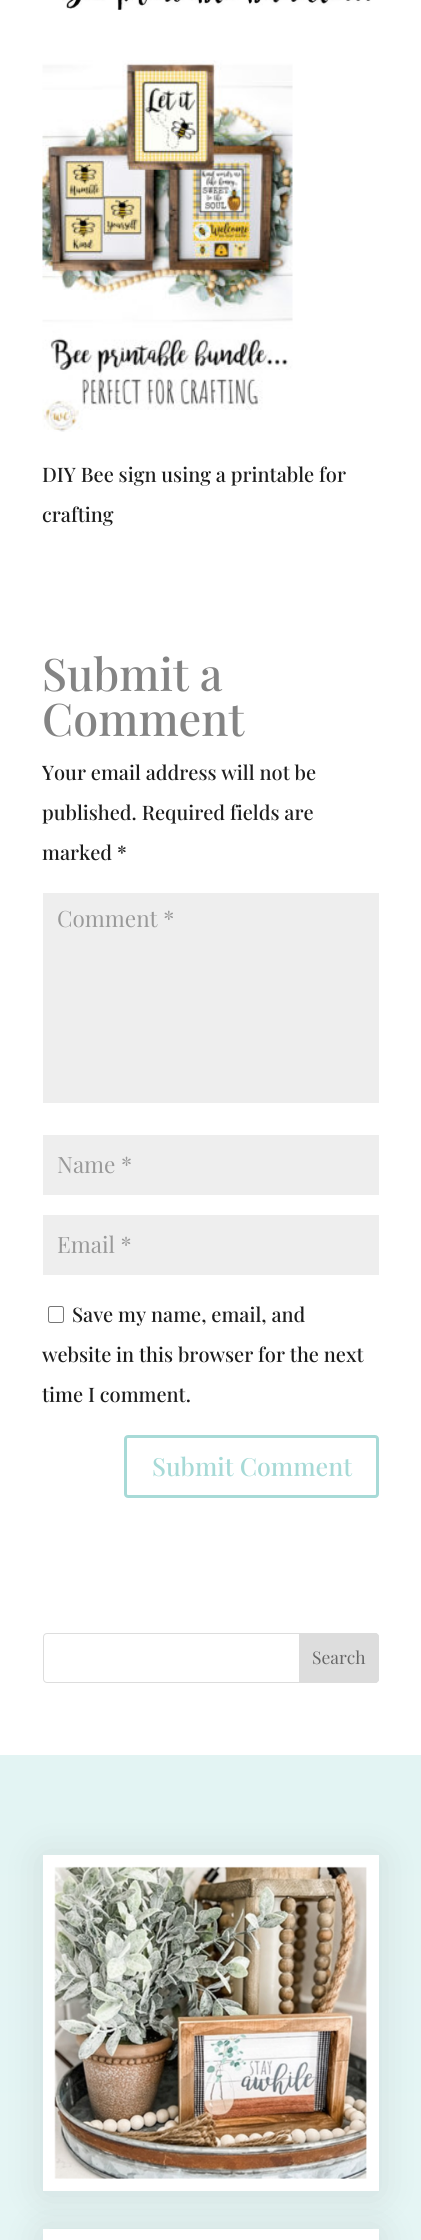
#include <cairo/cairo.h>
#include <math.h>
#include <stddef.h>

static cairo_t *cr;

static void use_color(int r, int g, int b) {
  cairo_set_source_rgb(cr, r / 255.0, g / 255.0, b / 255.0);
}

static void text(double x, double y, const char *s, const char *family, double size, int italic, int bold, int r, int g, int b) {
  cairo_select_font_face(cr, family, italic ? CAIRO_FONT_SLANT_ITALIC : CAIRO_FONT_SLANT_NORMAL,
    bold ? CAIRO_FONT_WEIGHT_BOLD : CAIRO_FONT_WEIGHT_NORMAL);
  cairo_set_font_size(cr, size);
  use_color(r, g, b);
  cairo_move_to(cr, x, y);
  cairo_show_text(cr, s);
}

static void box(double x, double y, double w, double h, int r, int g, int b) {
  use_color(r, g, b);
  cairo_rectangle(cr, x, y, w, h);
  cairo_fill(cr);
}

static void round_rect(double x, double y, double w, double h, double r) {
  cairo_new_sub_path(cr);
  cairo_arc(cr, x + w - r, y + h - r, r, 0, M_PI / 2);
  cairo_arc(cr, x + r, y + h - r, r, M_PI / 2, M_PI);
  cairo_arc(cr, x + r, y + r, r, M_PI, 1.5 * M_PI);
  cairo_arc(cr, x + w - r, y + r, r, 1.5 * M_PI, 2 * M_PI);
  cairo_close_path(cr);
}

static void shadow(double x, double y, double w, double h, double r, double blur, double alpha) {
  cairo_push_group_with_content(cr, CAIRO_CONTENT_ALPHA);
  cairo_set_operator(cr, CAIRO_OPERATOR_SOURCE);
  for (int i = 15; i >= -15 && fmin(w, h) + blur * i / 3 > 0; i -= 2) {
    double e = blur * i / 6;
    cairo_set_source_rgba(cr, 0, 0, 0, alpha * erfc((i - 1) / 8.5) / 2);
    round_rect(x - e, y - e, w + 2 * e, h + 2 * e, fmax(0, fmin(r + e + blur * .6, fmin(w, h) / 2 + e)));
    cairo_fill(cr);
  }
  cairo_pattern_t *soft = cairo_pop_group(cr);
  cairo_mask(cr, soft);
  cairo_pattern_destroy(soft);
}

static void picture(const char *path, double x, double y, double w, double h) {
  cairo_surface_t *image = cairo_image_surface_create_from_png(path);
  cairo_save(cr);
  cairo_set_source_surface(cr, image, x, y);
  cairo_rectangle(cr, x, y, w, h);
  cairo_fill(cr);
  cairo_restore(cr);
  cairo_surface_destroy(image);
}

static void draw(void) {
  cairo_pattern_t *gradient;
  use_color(255, 255, 255);
  cairo_paint(cr);
  picture("img_01.png", 62, 0, 309, 10);
  picture("img_02.png", 42, 60, 251, 372);
  box(43, 893, 336, 210, 238, 238, 238);
  box(43, 1135, 336, 60, 238, 238, 238);
  box(43, 1215, 336, 60, 238, 238, 238);
  round_rect(48.5, 1306.5, 15, 16, 2);
  use_color(118, 118, 118);
  cairo_set_line_width(cr, 1);
  cairo_stroke(cr);
  round_rect(125.5, 1436.5, 252, 60, 2.5);
  use_color(167, 218, 215);
  cairo_set_line_width(cr, 3);
  cairo_stroke(cr);
  round_rect(43.5, 1633.5, 335, 49, 3.5);
  use_color(221, 221, 221);
  cairo_set_line_width(cr, 1);
  cairo_stroke(cr);
  cairo_new_path(cr);
  cairo_move_to(cr, 299.5, 1633.5);
  cairo_line_to(cr, 375, 1633.5);
  cairo_curve_to(cr, 377, 1633.5, 378.5, 1635, 378.5, 1637);
  cairo_line_to(cr, 378.5, 1679);
  cairo_curve_to(cr, 378.5, 1681, 377, 1682.5, 375, 1682.5);
  cairo_line_to(cr, 299.5, 1682.5);
  cairo_close_path(cr);
  cairo_fill_preserve(cr);
  cairo_stroke(cr);
  gradient = cairo_pattern_create_linear(211, 1755, 211, 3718);
  cairo_pattern_add_color_stop_rgba(gradient, 0, 0.89, 0.957, 0.953, 1);
  cairo_pattern_add_color_stop_rgba(gradient, 0.99, 0.925, 0.969, 0.969, 1);
  cairo_set_source(cr, gradient);
  cairo_pattern_destroy(gradient);
  cairo_rectangle(cr, 0, 1755, 421, 485);
  cairo_fill(cr);
  use_color(0, 0, 0);
  shadow(43, 1858, 336, 336, 0, 19, 0.1);
  cairo_rectangle(cr, 49.5, 1861.5, 323, 323);
  use_color(255, 255, 255);
  cairo_set_line_width(cr, 13);
  cairo_stroke(cr);
  picture("img_03.png", 54, 1866, 313, 313);
  use_color(0, 0, 0);
  shadow(43, 2231, 336, 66, 0, 19, 0.1);
  cairo_rectangle(cr, 49.5, 2235.5, 323, 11);
  use_color(255, 255, 255);
  cairo_stroke(cr);
  text(42, 482, "DIY Bee sign using a printable for", "Playfair Display Medium", 20, 0, 0, 30, 30, 30);
  text(42, 522, "crafting", "Playfair Display Medium", 20, 0, 0, 30, 30, 30);
  text(42, 691, "Submit a", "Playfair Display Medium", 45, 0, 0, 132, 132, 132);
  text(42, 736, "Comment", "Playfair Display Medium", 45, 0, 0, 132, 132, 132);
  text(42, 780, "Your email address will not be", "Playfair Display Medium", 20, 0, 0, 30, 30, 30);
  text(42, 820, "published. Required fields are", "Playfair Display Medium", 20, 0, 0, 30, 30, 30);
  text(42, 860, "marked *", "Playfair Display Medium", 20, 0, 0, 30, 30, 30);
  text(57, 927, "Comment *", "Playfair Display", 22.5, 0, 0, 153, 153, 153);
  text(57, 1173, "Name *", "Playfair Display", 22.5, 0, 0, 153, 153, 153);
  text(57, 1253, "Email *", "Playfair Display", 22.5, 0, 0, 153, 153, 153);
  text(72, 1322, "Save my name, email, and", "Playfair Display Medium", 20, 0, 0, 30, 30, 30);
  text(42, 1362, "website in this browser for the next", "Playfair Display Medium", 20, 0, 0, 30, 30, 30);
  text(42, 1402, "time I comment.", "Playfair Display Medium", 20, 0, 0, 30, 30, 30);
  text(152, 1476, "Submit Comment", "Playfair Display Medium", 25, 0, 0, 167, 218, 215);
  text(312, 1664, "Search", "Playfair Display", 17.5, 0, 0, 102, 102, 102);
}

int main(void) {
  cairo_surface_t *surface = cairo_image_surface_create(CAIRO_FORMAT_RGB24, 421, 2240);
  cr = cairo_create(surface);
  cairo_font_options_t *options = cairo_font_options_create();
  cairo_font_options_set_hint_metrics(options, CAIRO_HINT_METRICS_OFF);
  cairo_font_options_set_hint_style(options, CAIRO_HINT_STYLE_NONE);
  cairo_set_font_options(cr, options);
  cairo_set_miter_limit(cr, 4);
  draw();
  cairo_surface_write_to_png(surface, "out.png");
  cairo_font_options_destroy(options);
  cairo_destroy(cr);
  cairo_surface_destroy(surface);
  return 0;
}
